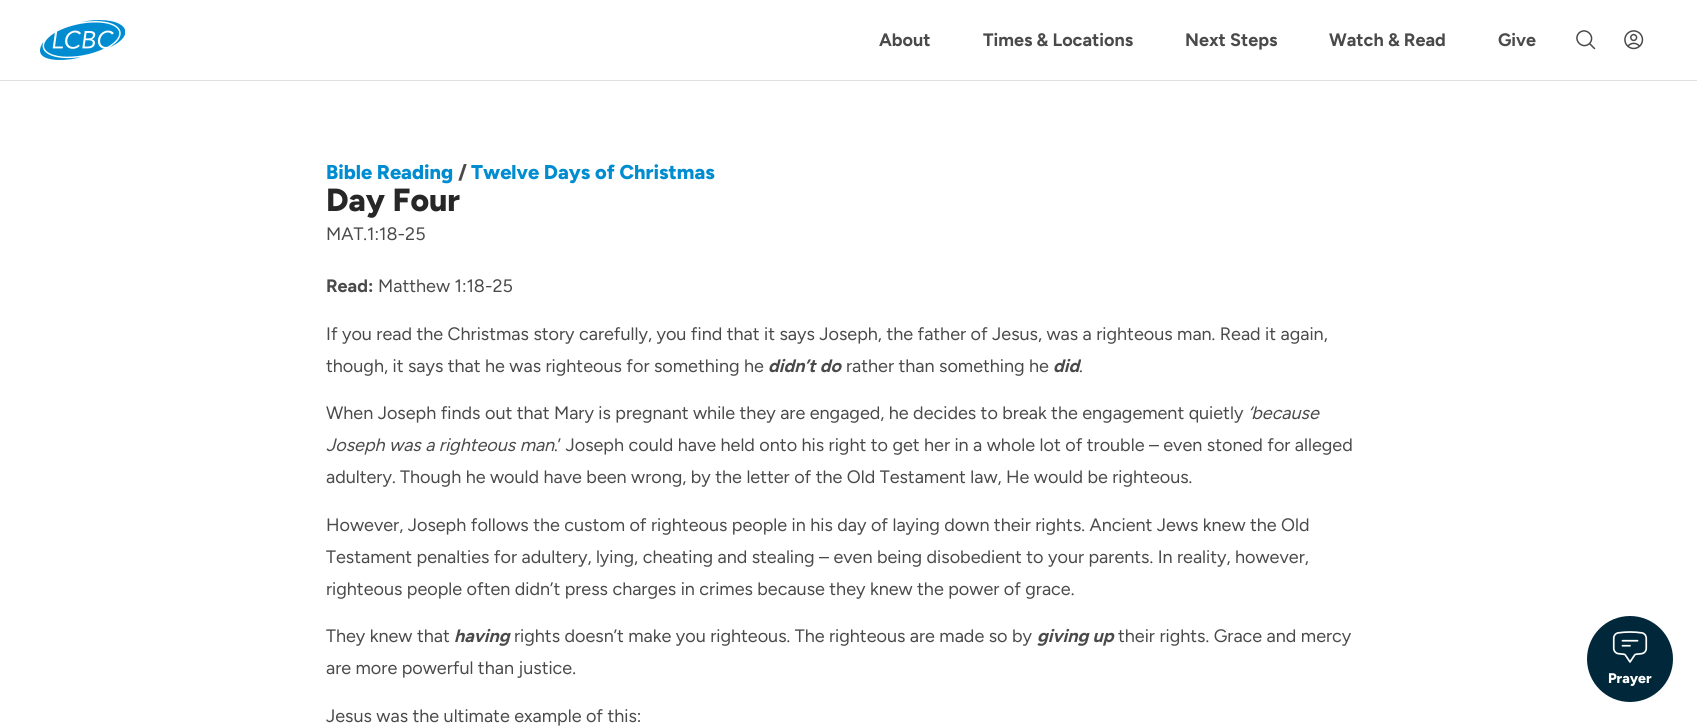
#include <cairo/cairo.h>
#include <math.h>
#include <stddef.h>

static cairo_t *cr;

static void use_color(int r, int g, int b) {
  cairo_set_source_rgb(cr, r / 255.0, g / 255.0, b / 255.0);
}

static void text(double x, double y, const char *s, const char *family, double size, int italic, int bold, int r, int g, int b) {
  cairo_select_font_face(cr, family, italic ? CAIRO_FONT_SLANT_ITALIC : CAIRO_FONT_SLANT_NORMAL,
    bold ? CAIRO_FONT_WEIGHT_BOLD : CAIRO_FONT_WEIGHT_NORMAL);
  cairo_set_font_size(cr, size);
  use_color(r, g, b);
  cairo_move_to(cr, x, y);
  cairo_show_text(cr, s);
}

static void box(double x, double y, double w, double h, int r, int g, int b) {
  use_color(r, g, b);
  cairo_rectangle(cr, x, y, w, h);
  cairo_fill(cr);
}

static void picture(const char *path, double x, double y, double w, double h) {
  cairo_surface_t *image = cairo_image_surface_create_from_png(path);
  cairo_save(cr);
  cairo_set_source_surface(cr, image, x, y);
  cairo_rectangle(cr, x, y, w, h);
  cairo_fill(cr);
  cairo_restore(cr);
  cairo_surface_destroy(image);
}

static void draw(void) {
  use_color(255, 255, 255);
  cairo_paint(cr);
  box(0, 80, 1697, 1, 224, 224, 224);
  picture("img_01.png", 40, 20, 85, 40);
  cairo_new_path(cr);
  cairo_move_to(cr, 1594.5, 48.5);
  cairo_line_to(cr, 1589.5, 43.5);
  cairo_move_to(cr, 1589.5, 43.5);
  cairo_curve_to(cr, 1596, 36.5, 1586, 26.5, 1579, 33);
  cairo_curve_to(cr, 1572.5, 40, 1582.5, 50, 1589.5, 43.5);
  cairo_close_path(cr);
  use_color(74, 74, 74);
  cairo_set_line_width(cr, 1.5);
  cairo_set_line_cap(cr, CAIRO_LINE_CAP_ROUND);
  cairo_set_line_join(cr, CAIRO_LINE_JOIN_ROUND);
  cairo_stroke(cr);
  picture("img_02.png", 1624, 30, 20, 20);
  use_color(0, 40, 58);
  cairo_arc(cr, 1630, 659, 45, 0, 2 * M_PI);
  cairo_fill_preserve(cr);
  use_color(255, 255, 255);
  cairo_set_line_width(cr, 4);
  cairo_set_line_cap(cr, CAIRO_LINE_CAP_BUTT);
  cairo_set_line_join(cr, CAIRO_LINE_JOIN_MITER);
  cairo_stroke(cr);
  picture("img_03.png", 1612, 631, 36, 32);
  text(879, 46, "About", "Figtree", 18, 0, 1, 74, 74, 74);
  text(983, 46, "Times & Locations", "Figtree", 18, 0, 1, 74, 74, 74);
  text(1185, 46, "Next Steps", "Figtree", 18, 0, 1, 74, 74, 74);
  text(1329, 46, "Watch & Read", "Figtree", 18, 0, 1, 74, 74, 74);
  text(1498, 46, "Give", "Figtree", 18, 0, 1, 74, 74, 74);
  text(326, 179, "Bible Reading", "Figtree ExtraBold", 20, 0, 0, 0, 140, 208);
  text(458, 179, "/", "Figtree ExtraBold", 20, 0, 0, 74, 74, 74);
  text(471, 179, "Twelve Days of Christmas", "Figtree ExtraBold", 20, 0, 0, 0, 140, 208);
  text(326, 211, "Day Four", "Figtree ExtraBold", 32, 0, 0, 39, 39, 39);
  text(326, 240, "MAT.1:18-25", "Figtree", 18, 0, 0, 74, 74, 74);
  text(326, 292, "Read:", "Figtree", 18, 0, 1, 74, 74, 74);
  text(378, 292, "Matthew 1:18-25", "Figtree", 18, 0, 0, 74, 74, 74);
  text(326, 340, "If you read the Christmas story carefully, you find that it says Joseph, the father of Jesus, was a righteous man. Read it again,", "Figtree", 18, 0, 0, 74, 74, 74);
  text(326, 372, "though, it says that he was righteous for something he", "Figtree", 18, 0, 0, 74, 74, 74);
  text(768, 372, "didn’t do", "Figtree", 18, 1, 1, 74, 74, 74);
  text(846, 372, "rather than something he", "Figtree", 18, 0, 0, 74, 74, 74);
  text(1053, 372, "did", "Figtree", 18, 1, 1, 74, 74, 74);
  text(1079, 372, ".", "Figtree", 18, 0, 0, 74, 74, 74);
  text(326, 419, "When Joseph finds out that Mary is pregnant while they are engaged, he decides to break the engagement quietly", "Figtree", 18, 0, 0, 74, 74, 74);
  text(1248, 419, "‘because", "Figtree", 18, 1, 0, 74, 74, 74);
  text(326, 451, "Joseph was a righteous man", "Figtree", 18, 1, 0, 74, 74, 74);
  text(554, 451, ".’ Joseph could have held onto his right to get her in a whole lot of trouble – even stoned for alleged", "Figtree", 18, 0, 0, 74, 74, 74);
  text(326, 483, "adultery. Though he would have been wrong, by the letter of the Old Testament law, He would be righteous.", "Figtree", 18, 0, 0, 74, 74, 74);
  text(326, 531, "However, Joseph follows the custom of righteous people in his day of laying down their rights. Ancient Jews knew the Old", "Figtree", 18, 0, 0, 74, 74, 74);
  text(326, 563, "Testament penalties for adultery, lying, cheating and stealing – even being disobedient to your parents. In reality, however,", "Figtree", 18, 0, 0, 74, 74, 74);
  text(326, 595, "righteous people often didn’t press charges in crimes because they knew the power of grace.", "Figtree", 18, 0, 0, 74, 74, 74);
  text(326, 642, "They knew that", "Figtree", 18, 0, 0, 74, 74, 74);
  text(454, 642, "having", "Figtree", 18, 1, 1, 74, 74, 74);
  text(514, 642, "rights doesn’t make you righteous. The righteous are made so by", "Figtree", 18, 0, 0, 74, 74, 74);
  text(1037, 642, "giving up", "Figtree", 18, 1, 1, 74, 74, 74);
  text(1118, 642, "their rights. Grace and mercy", "Figtree", 18, 0, 0, 74, 74, 74);
  text(326, 674, "are more powerful than justice.", "Figtree", 18, 0, 0, 74, 74, 74);
  text(326, 722, "Jesus was the ultimate example of this:", "Figtree", 18, 0, 0, 74, 74, 74);
  text(1608, 683, "Prayer", "Figtree ExtraBold", 14, 0, 0, 255, 255, 255);
}

int main(void) {
  cairo_surface_t *surface = cairo_image_surface_create(CAIRO_FORMAT_RGB24, 1697, 726);
  cr = cairo_create(surface);
  cairo_font_options_t *options = cairo_font_options_create();
  cairo_font_options_set_hint_metrics(options, CAIRO_HINT_METRICS_OFF);
  cairo_font_options_set_hint_style(options, CAIRO_HINT_STYLE_NONE);
  cairo_set_font_options(cr, options);
  cairo_set_miter_limit(cr, 4);
  draw();
  cairo_surface_write_to_png(surface, "out.png");
  cairo_font_options_destroy(options);
  cairo_destroy(cr);
  cairo_surface_destroy(surface);
  return 0;
}
